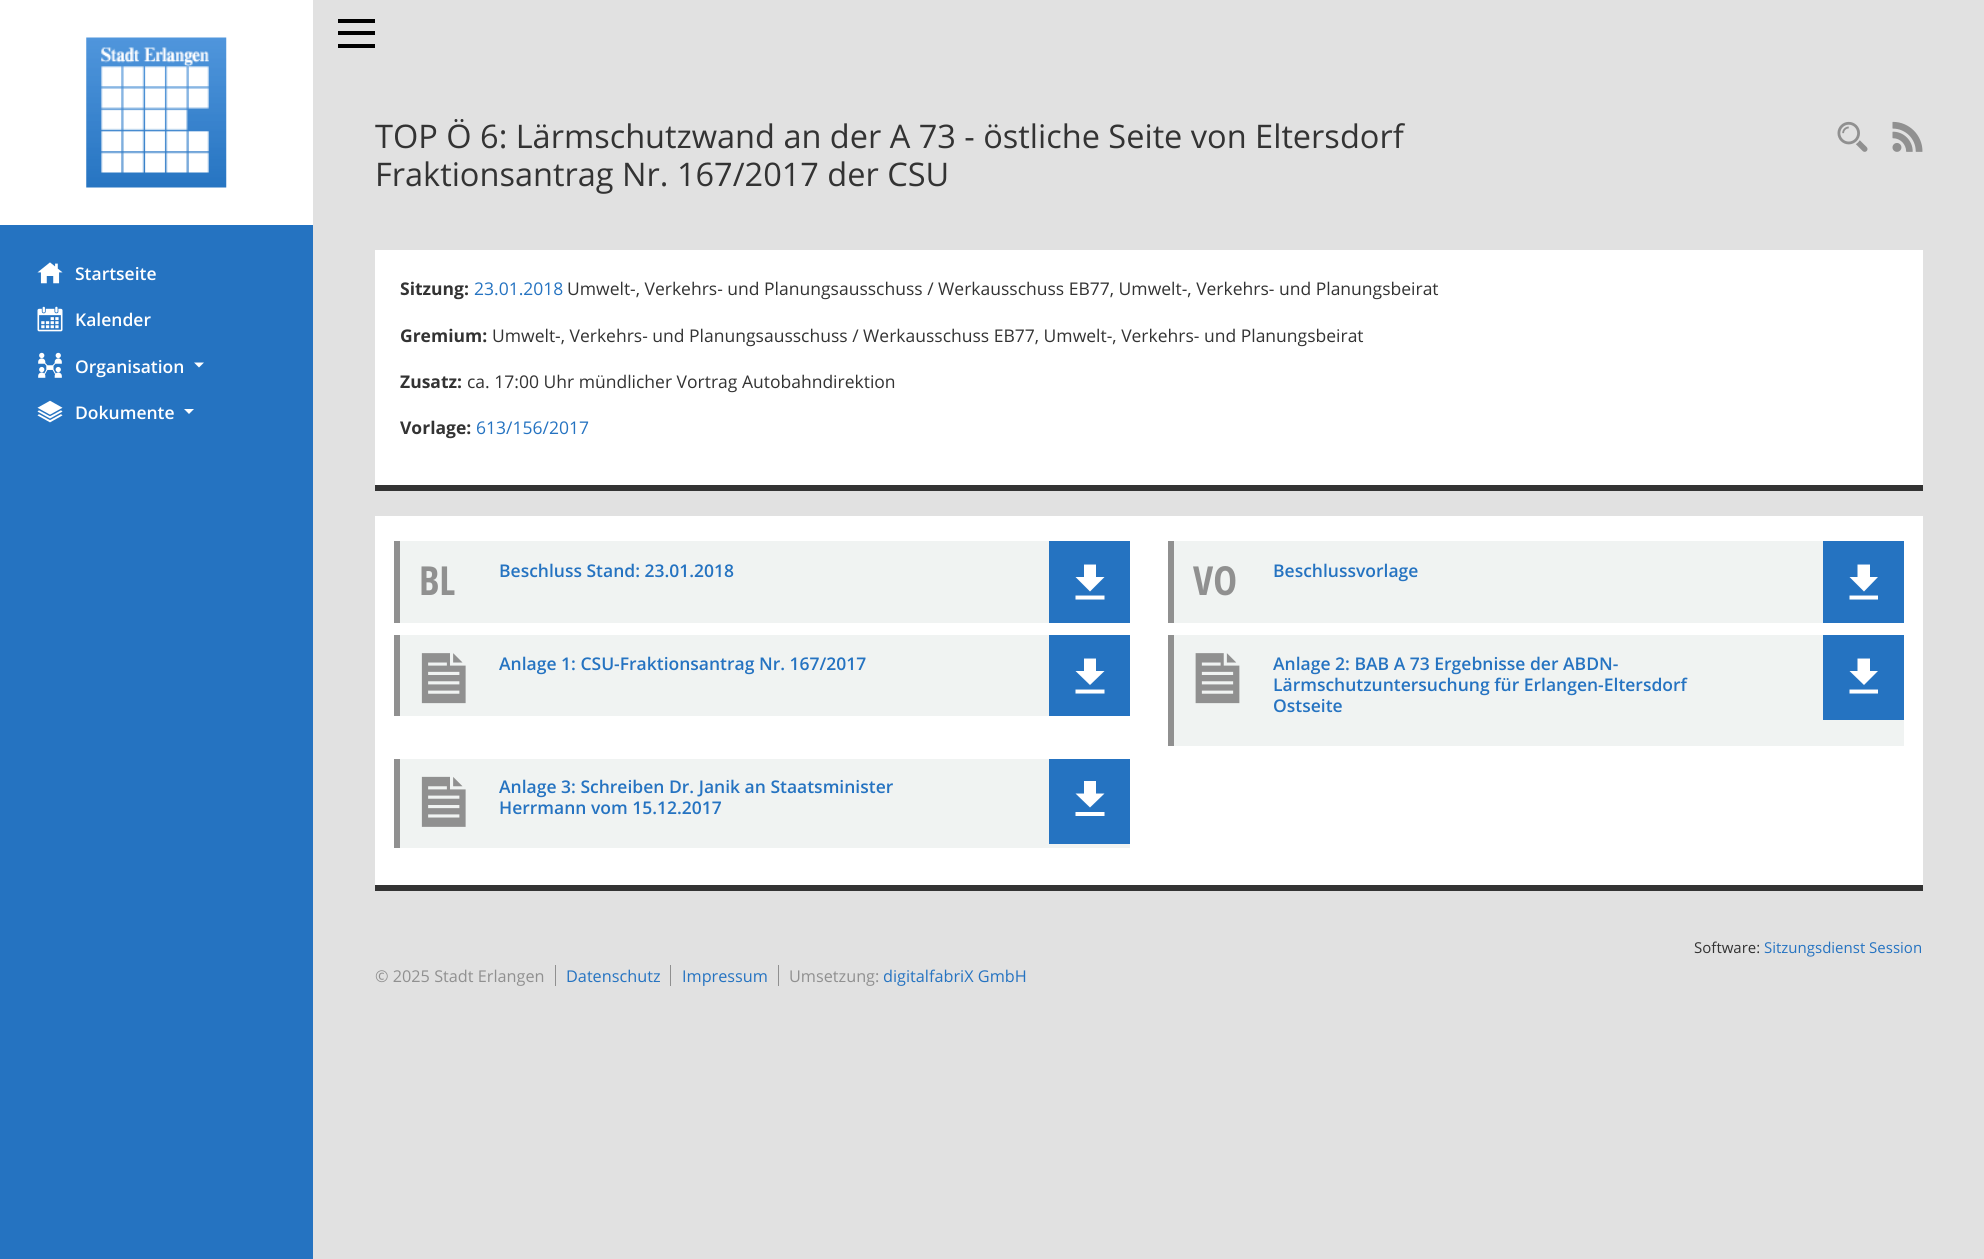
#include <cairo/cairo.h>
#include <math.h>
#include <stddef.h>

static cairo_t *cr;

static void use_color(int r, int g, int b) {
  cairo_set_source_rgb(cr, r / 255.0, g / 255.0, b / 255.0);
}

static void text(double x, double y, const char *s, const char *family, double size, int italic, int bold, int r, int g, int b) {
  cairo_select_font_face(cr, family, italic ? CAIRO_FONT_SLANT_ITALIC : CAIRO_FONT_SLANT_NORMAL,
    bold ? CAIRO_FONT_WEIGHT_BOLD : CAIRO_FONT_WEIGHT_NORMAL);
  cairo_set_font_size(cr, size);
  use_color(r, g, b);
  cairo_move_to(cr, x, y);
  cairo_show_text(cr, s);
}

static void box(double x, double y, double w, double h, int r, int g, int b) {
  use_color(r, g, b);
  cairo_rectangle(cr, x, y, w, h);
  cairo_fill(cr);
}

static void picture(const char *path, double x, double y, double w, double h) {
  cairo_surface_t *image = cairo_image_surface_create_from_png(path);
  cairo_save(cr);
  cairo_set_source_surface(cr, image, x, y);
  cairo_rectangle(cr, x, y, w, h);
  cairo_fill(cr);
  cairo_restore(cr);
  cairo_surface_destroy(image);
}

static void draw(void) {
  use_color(225, 225, 225);
  cairo_paint(cr);
  box(0, 225, 313, 1034, 37, 115, 193);
  box(0, 0, 313, 225, 255, 255, 255);
  picture("img_01.png", 86, 37, 141, 151);
  picture("img_02.png", 37, 262, 26, 22);
  picture("img_03.png", 37, 306, 26, 26);
  picture("img_04.png", 38, 352, 24, 26);
  cairo_new_path(cr);
  cairo_move_to(cr, 194, 362.5);
  cairo_line_to(cr, 204, 362.5);
  cairo_line_to(cr, 199, 367.5);
  cairo_close_path(cr);
  cairo_fill(cr);
  picture("img_05.png", 37, 400, 26, 23);
  cairo_new_path(cr);
  cairo_move_to(cr, 184, 409);
  cairo_line_to(cr, 194, 409);
  cairo_line_to(cr, 189, 414);
  cairo_close_path(cr);
  cairo_fill(cr);
  box(338, 19, 37, 4, 0, 0, 0);
  box(338, 31, 37, 4, 0, 0, 0);
  box(338, 44, 37, 4, 0, 0, 0);
  picture("img_06.png", 1837, 121, 31, 31);
  picture("img_07.png", 1892, 121, 31, 31);
  box(375, 250, 1548, 235, 255, 255, 255);
  box(375, 485, 1548, 6, 51, 51, 51);
  box(375, 516, 1548, 369, 255, 255, 255);
  box(375, 885, 1548, 6, 51, 51, 51);
  box(400, 541, 649, 82, 240, 243, 242);
  box(394, 541, 6, 82, 144, 144, 144);
  box(1049, 541, 81, 82, 37, 115, 193);
  use_color(255, 255, 255);
  cairo_new_path(cr);
  cairo_move_to(cr, 1104.5, 577);
  cairo_line_to(cr, 1096, 577);
  cairo_line_to(cr, 1096, 564.5);
  cairo_line_to(cr, 1084, 564.5);
  cairo_line_to(cr, 1084, 577);
  cairo_line_to(cr, 1075.5, 577);
  cairo_line_to(cr, 1090, 591.5);
  cairo_close_path(cr);
  cairo_move_to(cr, 1075.5, 595.5);
  cairo_line_to(cr, 1075.5, 599.5);
  cairo_line_to(cr, 1104.5, 599.5);
  cairo_line_to(cr, 1104.5, 595.5);
  cairo_close_path(cr);
  cairo_fill(cr);
  box(1174, 541, 649, 82, 240, 243, 242);
  box(1168, 541, 6, 82, 144, 144, 144);
  box(1823, 541, 81, 82, 37, 115, 193);
  use_color(255, 255, 255);
  cairo_new_path(cr);
  cairo_move_to(cr, 1878, 577);
  cairo_line_to(cr, 1870, 577);
  cairo_line_to(cr, 1870, 564.5);
  cairo_line_to(cr, 1857.5, 564.5);
  cairo_line_to(cr, 1857.5, 577);
  cairo_line_to(cr, 1849.5, 577);
  cairo_line_to(cr, 1864, 591.5);
  cairo_close_path(cr);
  cairo_move_to(cr, 1849.5, 595.5);
  cairo_line_to(cr, 1849.5, 599.5);
  cairo_line_to(cr, 1878, 599.5);
  cairo_line_to(cr, 1878, 595.5);
  cairo_close_path(cr);
  cairo_fill(cr);
  box(400, 635, 649, 81, 240, 243, 242);
  box(394, 635, 6, 81, 144, 144, 144);
  picture("img_08.png", 421, 653, 45, 51);
  box(1049, 635, 81, 81, 37, 115, 193);
  use_color(255, 255, 255);
  cairo_new_path(cr);
  cairo_move_to(cr, 1104.5, 671);
  cairo_line_to(cr, 1096, 671);
  cairo_line_to(cr, 1096, 658.5);
  cairo_line_to(cr, 1084, 658.5);
  cairo_line_to(cr, 1084, 671);
  cairo_line_to(cr, 1075.5, 671);
  cairo_line_to(cr, 1090, 685);
  cairo_close_path(cr);
  cairo_move_to(cr, 1075.5, 689.5);
  cairo_line_to(cr, 1075.5, 693.5);
  cairo_line_to(cr, 1104.5, 693.5);
  cairo_line_to(cr, 1104.5, 689.5);
  cairo_close_path(cr);
  cairo_fill(cr);
  box(1174, 635, 730, 111, 240, 243, 242);
  box(1168, 635, 6, 111, 144, 144, 144);
  picture("img_09.png", 1195, 653, 45, 51);
  box(1823, 635, 81, 85, 37, 115, 193);
  use_color(255, 255, 255);
  cairo_new_path(cr);
  cairo_move_to(cr, 1878, 671);
  cairo_line_to(cr, 1870, 671);
  cairo_line_to(cr, 1870, 658.5);
  cairo_line_to(cr, 1857.5, 658.5);
  cairo_line_to(cr, 1857.5, 671);
  cairo_line_to(cr, 1849.5, 671);
  cairo_line_to(cr, 1864, 685);
  cairo_close_path(cr);
  cairo_move_to(cr, 1849.5, 689.5);
  cairo_line_to(cr, 1849.5, 693.5);
  cairo_line_to(cr, 1878, 693.5);
  cairo_line_to(cr, 1878, 689.5);
  cairo_close_path(cr);
  cairo_fill(cr);
  box(400, 759, 730, 89, 240, 243, 242);
  box(394, 759, 6, 89, 144, 144, 144);
  picture("img_10.png", 421, 776, 45, 51);
  box(1049, 759, 81, 85, 37, 115, 193);
  use_color(255, 255, 255);
  cairo_new_path(cr);
  cairo_move_to(cr, 1104.5, 793.5);
  cairo_line_to(cr, 1096, 793.5);
  cairo_line_to(cr, 1096, 781);
  cairo_line_to(cr, 1084, 781);
  cairo_line_to(cr, 1084, 793.5);
  cairo_line_to(cr, 1075.5, 793.5);
  cairo_line_to(cr, 1090, 807.5);
  cairo_close_path(cr);
  cairo_move_to(cr, 1075.5, 812);
  cairo_line_to(cr, 1075.5, 816);
  cairo_line_to(cr, 1104.5, 816);
  cairo_line_to(cr, 1104.5, 812);
  cairo_close_path(cr);
  cairo_fill(cr);
  box(555, 965, 1, 21, 144, 144, 144);
  box(670, 965, 1, 21, 144, 144, 144);
  box(778, 965, 1, 21, 144, 144, 144);
  text(75, 280, "Startseite", "Open Sans SemiBold", 17.5, 0, 0, 255, 255, 255);
  text(75, 326, "Kalender", "Open Sans SemiBold", 17.5, 0, 0, 255, 255, 255);
  text(75, 373, "Organisation", "Open Sans SemiBold", 17.5, 0, 0, 255, 255, 255);
  text(75, 419, "Dokumente", "Open Sans SemiBold", 17.5, 0, 0, 255, 255, 255);
  text(375, 148, "TOP Ö 6: Lärmschutzwand an der A 73 - östliche Seite von Eltersdorf", "Open Sans", 32.5, 0, 0, 51, 51, 51);
  text(375, 186, "Fraktionsantrag Nr. 167/2017 der CSU", "Open Sans", 32.5, 0, 0, 51, 51, 51);
  text(400, 295, "Sitzung:", "Open Sans", 17.5, 0, 1, 51, 51, 51);
  text(474, 295, "23.01.2018", "Open Sans", 17.5, 0, 0, 37, 115, 193);
  text(567, 295, "Umwelt-, Verkehrs- und Planungsausschuss / Werkausschuss EB77, Umwelt-, Verkehrs- und Planungsbeirat", "Open Sans", 17.5, 0, 0, 51, 51, 51);
  text(400, 342, "Gremium:", "Open Sans", 17.5, 0, 1, 51, 51, 51);
  text(492, 342, "Umwelt-, Verkehrs- und Planungsausschuss / Werkausschuss EB77, Umwelt-, Verkehrs- und Planungsbeirat", "Open Sans", 17.5, 0, 0, 51, 51, 51);
  text(400, 388, "Zusatz:", "Open Sans", 17.5, 0, 1, 51, 51, 51);
  text(467, 388, "ca. 17:00 Uhr mündlicher Vortrag Autobahndirektion", "Open Sans", 17.5, 0, 0, 51, 51, 51);
  text(400, 434, "Vorlage:", "Open Sans", 17.5, 0, 1, 51, 51, 51);
  text(476, 434, "613/156/2017", "Open Sans", 17.5, 0, 0, 37, 115, 193);
  text(419, 595, "BL", "Open Sans Condensed", 40, 0, 1, 144, 144, 144);
  text(499, 577, "Beschluss Stand: 23.01.2018", "Open Sans SemiBold", 17.5, 0, 0, 37, 115, 193);
  text(1193, 595, "VO", "Open Sans Condensed", 40, 0, 1, 144, 144, 144);
  text(1273, 577, "Beschlussvorlage", "Open Sans SemiBold", 17.5, 0, 0, 37, 115, 193);
  text(499, 670, "Anlage 1: CSU-Fraktionsantrag Nr. 167/2017", "Open Sans SemiBold", 17.5, 0, 0, 37, 115, 193);
  text(1273, 670, "Anlage 2: BAB A 73 Ergebnisse der ABDN-", "Open Sans SemiBold", 17.5, 0, 0, 37, 115, 193);
  text(1273, 691, "Lärmschutzuntersuchung für Erlangen-Eltersdorf", "Open Sans SemiBold", 17.5, 0, 0, 37, 115, 193);
  text(1273, 712, "Ostseite", "Open Sans SemiBold", 17.5, 0, 0, 37, 115, 193);
  text(499, 793, "Anlage 3: Schreiben Dr. Janik an Staatsminister", "Open Sans SemiBold", 17.5, 0, 0, 37, 115, 193);
  text(499, 814, "Herrmann vom 15.12.2017", "Open Sans SemiBold", 17.5, 0, 0, 37, 115, 193);
  text(1694, 953, "Software:", "Open Sans", 15, 0, 0, 51, 51, 51);
  text(1764, 953, "Sitzungsdienst Session", "Open Sans", 15, 0, 0, 37, 115, 193);
  text(375, 982, "© 2025 Stadt Erlangen", "Open Sans", 16.25, 0, 0, 144, 144, 144);
  text(566, 982, "Datenschutz", "Open Sans", 16.25, 0, 0, 37, 115, 193);
  text(682, 982, "Impressum", "Open Sans", 16.25, 0, 0, 37, 115, 193);
  text(789, 982, "Umsetzung:", "Open Sans", 16.25, 0, 0, 144, 144, 144);
  text(883, 982, "digitalfabriX GmbH", "Open Sans", 16.25, 0, 0, 37, 115, 193);
}

int main(void) {
  cairo_surface_t *surface = cairo_image_surface_create(CAIRO_FORMAT_RGB24, 1984, 1259);
  cr = cairo_create(surface);
  cairo_font_options_t *options = cairo_font_options_create();
  cairo_font_options_set_hint_metrics(options, CAIRO_HINT_METRICS_OFF);
  cairo_font_options_set_hint_style(options, CAIRO_HINT_STYLE_NONE);
  cairo_set_font_options(cr, options);
  cairo_set_miter_limit(cr, 4);
  draw();
  cairo_surface_write_to_png(surface, "out.png");
  cairo_font_options_destroy(options);
  cairo_destroy(cr);
  cairo_surface_destroy(surface);
  return 0;
}
